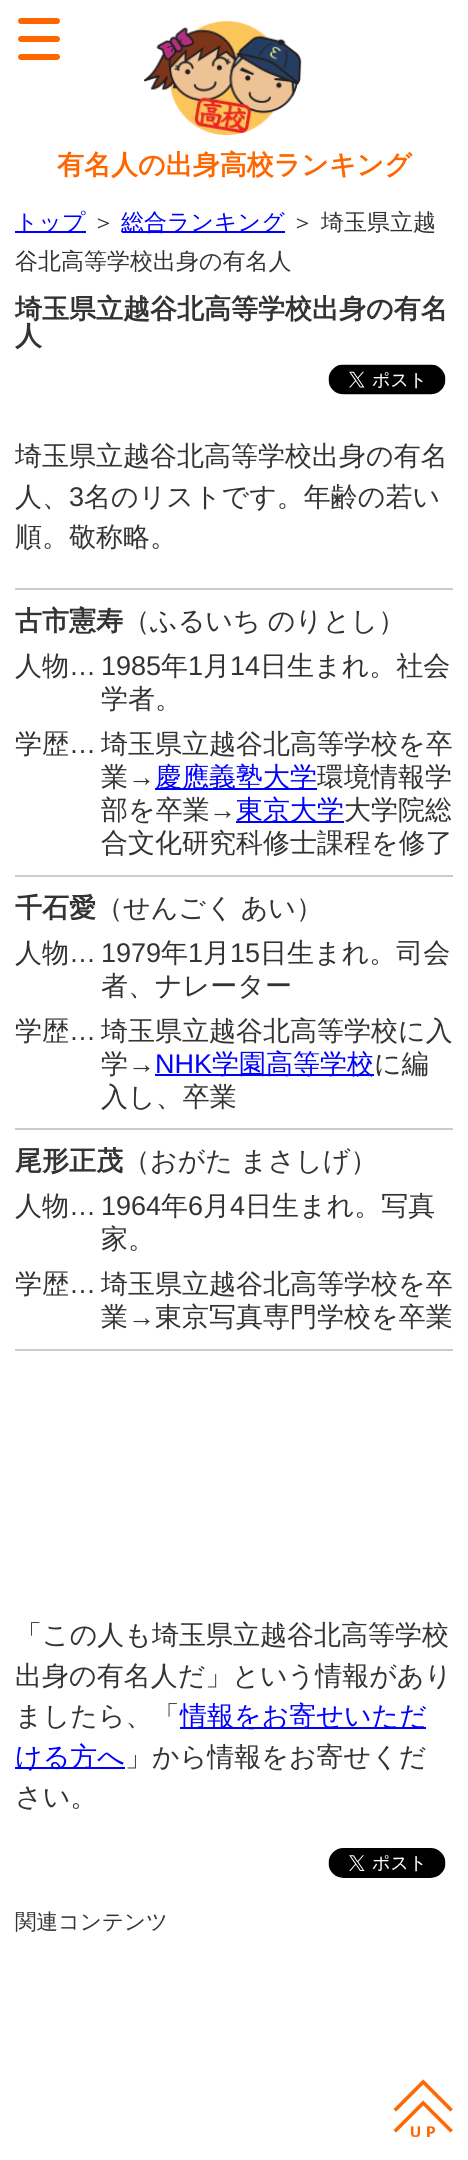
#include <cairo/cairo.h>
#include <math.h>
#include <stddef.h>

static cairo_t *cr;

static void use_color(int r, int g, int b) {
  cairo_set_source_rgb(cr, r / 255.0, g / 255.0, b / 255.0);
}

static void text(double x, double y, const char *s, const char *family, double size, int italic, int bold, int r, int g, int b) {
  cairo_select_font_face(cr, family, italic ? CAIRO_FONT_SLANT_ITALIC : CAIRO_FONT_SLANT_NORMAL,
    bold ? CAIRO_FONT_WEIGHT_BOLD : CAIRO_FONT_WEIGHT_NORMAL);
  cairo_set_font_size(cr, size);
  use_color(r, g, b);
  cairo_move_to(cr, x, y);
  cairo_show_text(cr, s);
}

static void spaced_text(double x, double y, const char *s, double letter, double word) {
  cairo_move_to(cr, x, y);
  while (*s) {
    char ch[5] = {0};
    int n = 0;
    do ch[n++] = *s++; while ((*s & 0xC0) == 0x80);
    cairo_show_text(cr, ch);
    cairo_rel_move_to(cr, letter + word * (*ch == ' '), 0);
  }
}

static void box(double x, double y, double w, double h, int r, int g, int b) {
  use_color(r, g, b);
  cairo_rectangle(cr, x, y, w, h);
  cairo_fill(cr);
}

static void round_rect(double x, double y, double w, double h, double r) {
  cairo_new_sub_path(cr);
  cairo_arc(cr, x + w - r, y + h - r, r, 0, M_PI / 2);
  cairo_arc(cr, x + r, y + h - r, r, M_PI / 2, M_PI);
  cairo_arc(cr, x + r, y + r, r, M_PI, 1.5 * M_PI);
  cairo_arc(cr, x + w - r, y + r, r, 1.5 * M_PI, 2 * M_PI);
  cairo_close_path(cr);
}

static void picture(const char *path, double x, double y, double w, double h) {
  cairo_surface_t *image = cairo_image_surface_create_from_png(path);
  cairo_save(cr);
  cairo_set_source_surface(cr, image, x, y);
  cairo_rectangle(cr, x, y, w, h);
  cairo_fill(cr);
  cairo_restore(cr);
  cairo_surface_destroy(image);
}

static void draw(void) {
  use_color(255, 255, 255);
  cairo_paint(cr);
  use_color(255, 102, 0);
  round_rect(18, 18, 42, 6, 3);
  cairo_fill(cr);
  round_rect(18, 36, 42, 6, 3);
  cairo_fill(cr);
  round_rect(18, 54, 42, 6, 3);
  cairo_fill(cr);
  picture("img_01.png", 393, 2079, 60, 58);
  picture("img_02.png", 144, 21, 158, 114);
  box(15, 231, 71, 2, 0, 0, 255);
  box(122, 231, 163, 2, 0, 0, 255);
  picture("img_03.png", 328, 364, 118, 31);
  box(15, 588, 438, 2, 204, 204, 204);
  box(15, 875, 438, 2, 204, 204, 204);
  box(155, 788, 162, 2, 0, 0, 255);
  box(236, 821, 108, 2, 0, 0, 255);
  box(15, 1128, 438, 2, 204, 204, 204);
  box(155, 1074, 219, 2, 0, 0, 255);
  box(15, 1349, 438, 2, 204, 204, 204);
  box(180, 1727, 246, 2, 0, 0, 255);
  box(15, 1767, 110, 2, 0, 0, 255);
  picture("img_04.png", 328, 1848, 118, 30);
  text(57, 174, "有名人の出身高校ランキング", "WenQuanYi Zen Hei", 27, 0, 1, 255, 102, 0);
  text(15, 230, "トップ", "WenQuanYi Zen Hei Medium", 23, 0, 0, 0, 0, 255);
  text(92, 230, "＞", "WenQuanYi Zen Hei Medium", 23, 0, 0, 51, 51, 51);
  text(121, 230, "総合ランキング", "WenQuanYi Zen Hei Medium", 23, 0, 0, 0, 0, 255);
  text(291, 230, "＞ 埼玉県立越", "WenQuanYi Zen Hei Medium", 23, 0, 0, 51, 51, 51);
  text(15, 269, "谷北高等学校出身の有名人", "WenQuanYi Zen Hei Medium", 23, 0, 0, 51, 51, 51);
  text(15, 318, "埼玉県立越谷北高等学校出身の有名", "WenQuanYi Zen Hei", 27, 0, 1, 51, 51, 51);
  text(15, 345, "人", "WenQuanYi Zen Hei", 27, 0, 1, 51, 51, 51);
  text(15, 465, "埼玉県立越谷北高等学校出身の有名", "WenQuanYi Zen Hei Medium", 27, 0, 0, 51, 51, 51);
  text(15, 506, "人、", "WenQuanYi Zen Hei Medium", 27, 0, 0, 51, 51, 51);
  text(69, 506, "3", "Liberation Sans", 27, 0, 0, 51, 51, 51);
  text(84, 506, "名のリストです。年齢の若い", "WenQuanYi Zen Hei Medium", 27, 0, 0, 51, 51, 51);
  text(15, 546, "順。敬称略。", "WenQuanYi Zen Hei Medium", 27, 0, 0, 51, 51, 51);
  text(15, 630, "古市憲寿", "WenQuanYi Zen Hei", 27, 0, 1, 51, 51, 51);
  cairo_select_font_face(cr, "WenQuanYi Zen Hei Medium", CAIRO_FONT_SLANT_NORMAL, CAIRO_FONT_WEIGHT_NORMAL);
  spaced_text(123, 630, "（ふるいち のりとし）", 0, -1);
  text(15, 675, "人物", "WenQuanYi Zen Hei Medium", 27, 0, 0, 51, 51, 51);
  text(69, 675, "…", "Liberation Sans", 27, 0, 0, 51, 51, 51);
  text(101, 675, "1985", "Liberation Sans", 27, 0, 0, 51, 51, 51);
  text(161, 675, "年", "WenQuanYi Zen Hei Medium", 27, 0, 0, 51, 51, 51);
  text(188, 675, "1", "Liberation Sans", 27, 0, 0, 51, 51, 51);
  text(203, 675, "月", "WenQuanYi Zen Hei Medium", 27, 0, 0, 51, 51, 51);
  text(230, 675, "14", "Liberation Sans", 27, 0, 0, 51, 51, 51);
  text(260, 675, "日生まれ。社会", "WenQuanYi Zen Hei Medium", 27, 0, 0, 51, 51, 51);
  text(101, 708, "学者。", "WenQuanYi Zen Hei Medium", 27, 0, 0, 51, 51, 51);
  text(15, 753, "学歴", "WenQuanYi Zen Hei Medium", 27, 0, 0, 51, 51, 51);
  text(69, 753, "…", "Liberation Sans", 27, 0, 0, 51, 51, 51);
  text(101, 753, "埼玉県立越谷北高等学校を卒", "WenQuanYi Zen Hei Medium", 27, 0, 0, 51, 51, 51);
  text(101, 786, "業", "WenQuanYi Zen Hei Medium", 27, 0, 0, 51, 51, 51);
  text(128, 786, "→", "Liberation Sans", 27, 0, 0, 51, 51, 51);
  text(155, 786, "慶應義塾大学", "WenQuanYi Zen Hei Medium", 27, 0, 0, 0, 0, 255);
  text(317, 786, "環境情報学", "WenQuanYi Zen Hei Medium", 27, 0, 0, 51, 51, 51);
  text(101, 819, "部を卒業", "WenQuanYi Zen Hei Medium", 27, 0, 0, 51, 51, 51);
  text(209, 819, "→", "Liberation Sans", 27, 0, 0, 51, 51, 51);
  text(236, 819, "東京大学", "WenQuanYi Zen Hei Medium", 27, 0, 0, 0, 0, 255);
  text(344, 819, "大学院総", "WenQuanYi Zen Hei Medium", 27, 0, 0, 51, 51, 51);
  text(101, 852, "合文化研究科修士課程を修了", "WenQuanYi Zen Hei Medium", 27, 0, 0, 51, 51, 51);
  text(15, 917, "千石愛", "WenQuanYi Zen Hei", 27, 0, 1, 51, 51, 51);
  cairo_select_font_face(cr, "WenQuanYi Zen Hei Medium", CAIRO_FONT_SLANT_NORMAL, CAIRO_FONT_WEIGHT_NORMAL);
  spaced_text(96, 917, "（せんごく あい）", 0, -1);
  text(15, 962, "人物", "WenQuanYi Zen Hei Medium", 27, 0, 0, 51, 51, 51);
  text(69, 962, "…", "Liberation Sans", 27, 0, 0, 51, 51, 51);
  text(101, 962, "1979", "Liberation Sans", 27, 0, 0, 51, 51, 51);
  text(161, 962, "年", "WenQuanYi Zen Hei Medium", 27, 0, 0, 51, 51, 51);
  text(188, 962, "1", "Liberation Sans", 27, 0, 0, 51, 51, 51);
  text(203, 962, "月", "WenQuanYi Zen Hei Medium", 27, 0, 0, 51, 51, 51);
  text(230, 962, "15", "Liberation Sans", 27, 0, 0, 51, 51, 51);
  text(260, 962, "日生まれ。司会", "WenQuanYi Zen Hei Medium", 27, 0, 0, 51, 51, 51);
  text(101, 995, "者、ナレーター", "WenQuanYi Zen Hei Medium", 27, 0, 0, 51, 51, 51);
  text(15, 1040, "学歴", "WenQuanYi Zen Hei Medium", 27, 0, 0, 51, 51, 51);
  text(69, 1040, "…", "Liberation Sans", 27, 0, 0, 51, 51, 51);
  text(101, 1040, "埼玉県立越谷北高等学校に入", "WenQuanYi Zen Hei Medium", 27, 0, 0, 51, 51, 51);
  text(101, 1073, "学", "WenQuanYi Zen Hei Medium", 27, 0, 0, 51, 51, 51);
  text(128, 1073, "→", "Liberation Sans", 27, 0, 0, 51, 51, 51);
  text(155, 1073, "NHK", "Liberation Sans", 27, 0, 0, 0, 0, 255);
  text(212, 1073, "学園高等学校", "WenQuanYi Zen Hei Medium", 27, 0, 0, 0, 0, 255);
  text(374, 1073, "に編", "WenQuanYi Zen Hei Medium", 27, 0, 0, 51, 51, 51);
  text(101, 1106, "入し、卒業", "WenQuanYi Zen Hei Medium", 27, 0, 0, 51, 51, 51);
  text(15, 1170, "尾形正茂", "WenQuanYi Zen Hei", 27, 0, 1, 51, 51, 51);
  cairo_select_font_face(cr, "WenQuanYi Zen Hei Medium", CAIRO_FONT_SLANT_NORMAL, CAIRO_FONT_WEIGHT_NORMAL);
  spaced_text(123, 1170, "（おがた まさしげ）", 0, -1);
  text(15, 1215, "人物", "WenQuanYi Zen Hei Medium", 27, 0, 0, 51, 51, 51);
  text(69, 1215, "…", "Liberation Sans", 27, 0, 0, 51, 51, 51);
  text(101, 1215, "1964", "Liberation Sans", 27, 0, 0, 51, 51, 51);
  text(161, 1215, "年", "WenQuanYi Zen Hei Medium", 27, 0, 0, 51, 51, 51);
  text(188, 1215, "6", "Liberation Sans", 27, 0, 0, 51, 51, 51);
  text(203, 1215, "月", "WenQuanYi Zen Hei Medium", 27, 0, 0, 51, 51, 51);
  text(230, 1215, "4", "Liberation Sans", 27, 0, 0, 51, 51, 51);
  text(245, 1215, "日生まれ。写真", "WenQuanYi Zen Hei Medium", 27, 0, 0, 51, 51, 51);
  text(101, 1248, "家。", "WenQuanYi Zen Hei Medium", 27, 0, 0, 51, 51, 51);
  text(15, 1293, "学歴", "WenQuanYi Zen Hei Medium", 27, 0, 0, 51, 51, 51);
  text(69, 1293, "…", "Liberation Sans", 27, 0, 0, 51, 51, 51);
  text(101, 1293, "埼玉県立越谷北高等学校を卒", "WenQuanYi Zen Hei Medium", 27, 0, 0, 51, 51, 51);
  text(101, 1326, "業", "WenQuanYi Zen Hei Medium", 27, 0, 0, 51, 51, 51);
  text(128, 1326, "→", "Liberation Sans", 27, 0, 0, 51, 51, 51);
  text(155, 1326, "東京写真専門学校を卒業", "WenQuanYi Zen Hei Medium", 27, 0, 0, 51, 51, 51);
  text(15, 1644, "「この人も埼玉県立越谷北高等学校", "WenQuanYi Zen Hei Medium", 27, 0, 0, 51, 51, 51);
  text(15, 1685, "出身の有名人だ」という情報があり", "WenQuanYi Zen Hei Medium", 27, 0, 0, 51, 51, 51);
  text(15, 1725, "ましたら、「", "WenQuanYi Zen Hei Medium", 27, 0, 0, 51, 51, 51);
  text(180, 1725, "情報をお寄せいただ", "WenQuanYi Zen Hei Medium", 27, 0, 0, 0, 0, 255);
  text(15, 1766, "ける方へ", "WenQuanYi Zen Hei Medium", 27, 0, 0, 0, 0, 255);
  text(125, 1766, "」から情報をお寄せくだ", "WenQuanYi Zen Hei Medium", 27, 0, 0, 51, 51, 51);
  text(15, 1806, "さい。", "WenQuanYi Zen Hei Medium", 27, 0, 0, 51, 51, 51);
  text(15, 1929, "関連コンテンツ", "WenQuanYi Zen Hei Medium", 21.5, 0, 0, 51, 51, 51);
}

int main(void) {
  cairo_surface_t *surface = cairo_image_surface_create(CAIRO_FORMAT_RGB24, 468, 2160);
  cr = cairo_create(surface);
  cairo_font_options_t *options = cairo_font_options_create();
  cairo_font_options_set_hint_metrics(options, CAIRO_HINT_METRICS_OFF);
  cairo_font_options_set_hint_style(options, CAIRO_HINT_STYLE_NONE);
  cairo_set_font_options(cr, options);
  cairo_set_miter_limit(cr, 4);
  draw();
  cairo_surface_write_to_png(surface, "out.png");
  cairo_font_options_destroy(options);
  cairo_destroy(cr);
  cairo_surface_destroy(surface);
  return 0;
}
